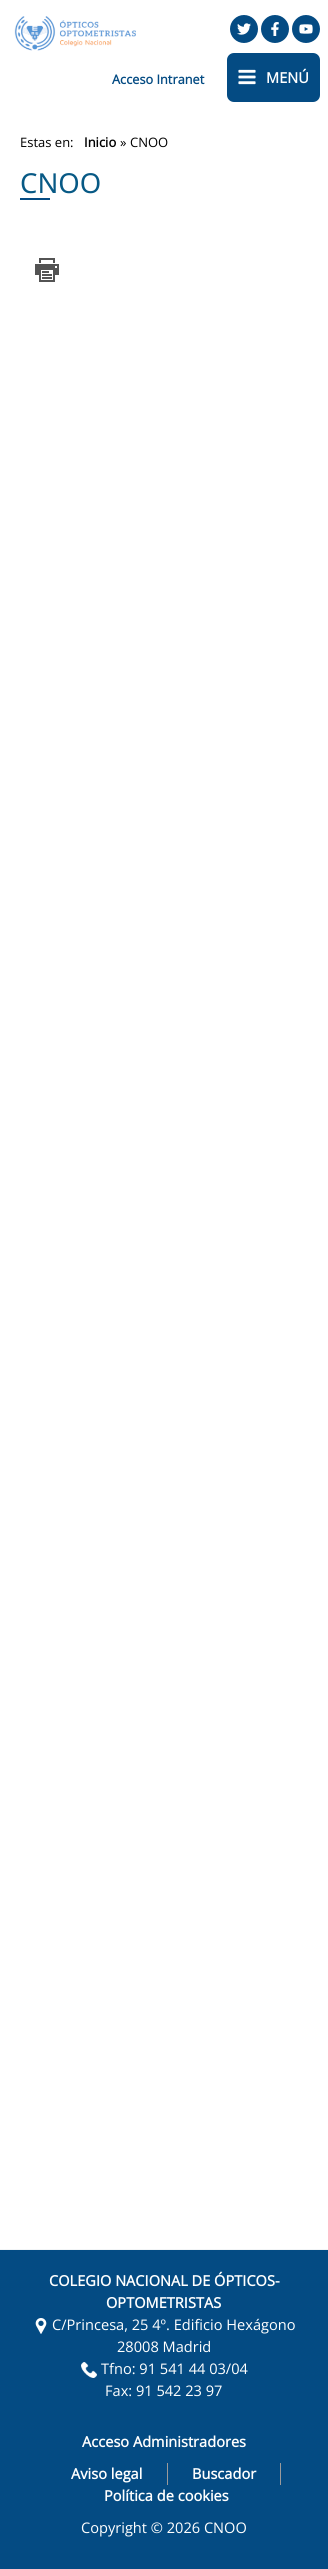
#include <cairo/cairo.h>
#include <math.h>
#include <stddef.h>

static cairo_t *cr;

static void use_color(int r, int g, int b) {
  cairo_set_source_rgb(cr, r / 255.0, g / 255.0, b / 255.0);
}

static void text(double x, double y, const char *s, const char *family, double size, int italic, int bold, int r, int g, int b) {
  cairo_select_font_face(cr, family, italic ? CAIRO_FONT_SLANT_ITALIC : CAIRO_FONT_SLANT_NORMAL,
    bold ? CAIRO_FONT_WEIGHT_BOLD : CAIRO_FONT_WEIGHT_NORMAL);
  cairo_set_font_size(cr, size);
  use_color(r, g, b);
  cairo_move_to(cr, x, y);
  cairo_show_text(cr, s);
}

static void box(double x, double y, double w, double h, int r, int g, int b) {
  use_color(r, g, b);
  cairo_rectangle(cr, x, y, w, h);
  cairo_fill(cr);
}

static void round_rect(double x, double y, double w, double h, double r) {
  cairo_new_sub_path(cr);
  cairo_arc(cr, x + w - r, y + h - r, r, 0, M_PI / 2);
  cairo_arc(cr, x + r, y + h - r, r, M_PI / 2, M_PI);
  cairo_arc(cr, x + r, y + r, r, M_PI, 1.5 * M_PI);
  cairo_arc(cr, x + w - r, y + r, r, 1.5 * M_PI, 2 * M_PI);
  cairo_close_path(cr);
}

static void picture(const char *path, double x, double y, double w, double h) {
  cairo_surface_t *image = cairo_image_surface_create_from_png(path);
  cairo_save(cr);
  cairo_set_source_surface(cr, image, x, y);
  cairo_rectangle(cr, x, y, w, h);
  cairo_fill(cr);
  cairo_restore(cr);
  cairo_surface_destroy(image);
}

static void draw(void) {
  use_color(255, 255, 255);
  cairo_paint(cr);
  picture("img_01.png", 14, 16, 122, 35);
  use_color(4, 75, 131);
  cairo_arc(cr, 244, 29, 14, 0, 2 * M_PI);
  cairo_fill(cr);
  picture("img_02.png", 237, 23, 14, 12);
  cairo_arc(cr, 275, 29, 14, 0, 2 * M_PI);
  cairo_fill(cr);
  picture("img_03.png", 271, 22, 8, 14);
  cairo_arc(cr, 306, 29, 14, 0, 2 * M_PI);
  cairo_fill(cr);
  picture("img_04.png", 299, 24, 14, 10);
  round_rect(227, 53, 93, 49, 7);
  cairo_fill(cr);
  picture("img_05.png", 238, 69, 18, 16);
  box(20, 198, 30, 2, 4, 75, 131);
  picture("img_06.png", 35, 258, 24, 24);
  box(0, 2250, 328, 319, 4, 75, 131);
  box(0, 2249, 328, 1, 242, 245, 247);
  picture("img_07.png", 35, 2318, 12, 16);
  picture("img_08.png", 81, 2362, 16, 16);
  box(167, 2463, 1, 22, 155, 154, 154);
  box(280, 2463, 1, 22, 155, 154, 154);
  text(112, 84, "Acceso Intranet", "Open Sans", 12.75, 0, 1, 4, 75, 131);
  text(266, 83, "MENÚ", "Open Sans", 14.6, 0, 1, 255, 255, 255);
  text(20, 147, "Estas en:", "Open Sans", 13, 0, 0, 0, 0, 0);
  text(84, 147, "Inicio", "Open Sans", 13, 0, 1, 0, 0, 0);
  text(120, 147, "»", "Open Sans", 13, 0, 0, 0, 0, 0);
  text(130, 147, "CNOO", "Open Sans", 13, 0, 0, 0, 0, 0);
  text(20, 193, "CNOO", "Noto Sans", 27.5, 0, 0, 7, 89, 133);
  text(49, 2286, "COLEGIO NACIONAL DE ÓPTICOS-", "Open Sans", 14.6, 0, 1, 255, 255, 255);
  text(106, 2308, "OPTOMETRISTAS", "Open Sans", 14.6, 0, 1, 255, 255, 255);
  text(52, 2330, "C/Princesa, 25 4º. Edificio Hexágono", "Open Sans", 14.6, 0, 0, 255, 255, 255);
  text(117, 2352, "28008 Madrid", "Open Sans", 14.6, 0, 0, 255, 255, 255);
  text(101, 2374, "Tfno: 91 541 44 03/04", "Open Sans", 14.6, 0, 0, 255, 255, 255);
  text(105, 2396, "Fax: 91 542 23 97", "Open Sans", 14.6, 0, 0, 255, 255, 255);
  text(82, 2447, "Acceso Administradores", "Open Sans", 14.6, 0, 1, 255, 255, 255);
  text(71, 2479, "Aviso legal", "Open Sans", 14.6, 0, 1, 255, 255, 255);
  text(192, 2479, "Buscador", "Open Sans", 14.6, 0, 1, 255, 255, 255);
  text(104, 2501, "Política de cookies", "Open Sans", 14.6, 0, 1, 255, 255, 255);
  text(81, 2533, "Copyright © 2026 CNOO", "Open Sans", 14.6, 0, 0, 255, 255, 255);
}

int main(void) {
  cairo_surface_t *surface = cairo_image_surface_create(CAIRO_FORMAT_RGB24, 328, 2569);
  cr = cairo_create(surface);
  cairo_font_options_t *options = cairo_font_options_create();
  cairo_font_options_set_hint_metrics(options, CAIRO_HINT_METRICS_OFF);
  cairo_font_options_set_hint_style(options, CAIRO_HINT_STYLE_NONE);
  cairo_set_font_options(cr, options);
  cairo_set_miter_limit(cr, 4);
  draw();
  cairo_surface_write_to_png(surface, "out.png");
  cairo_font_options_destroy(options);
  cairo_destroy(cr);
  cairo_surface_destroy(surface);
  return 0;
}
